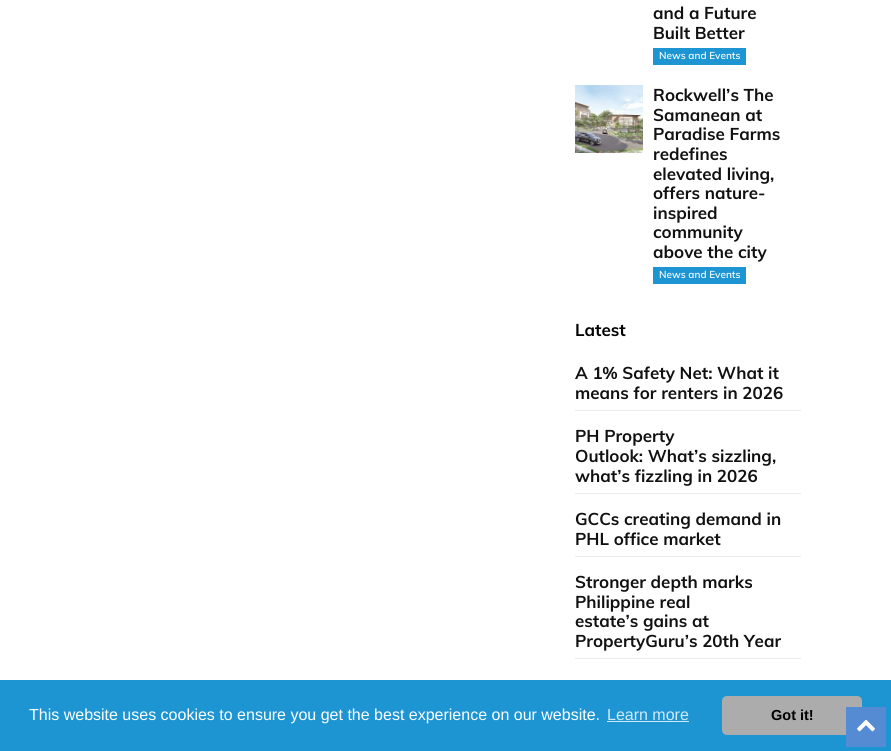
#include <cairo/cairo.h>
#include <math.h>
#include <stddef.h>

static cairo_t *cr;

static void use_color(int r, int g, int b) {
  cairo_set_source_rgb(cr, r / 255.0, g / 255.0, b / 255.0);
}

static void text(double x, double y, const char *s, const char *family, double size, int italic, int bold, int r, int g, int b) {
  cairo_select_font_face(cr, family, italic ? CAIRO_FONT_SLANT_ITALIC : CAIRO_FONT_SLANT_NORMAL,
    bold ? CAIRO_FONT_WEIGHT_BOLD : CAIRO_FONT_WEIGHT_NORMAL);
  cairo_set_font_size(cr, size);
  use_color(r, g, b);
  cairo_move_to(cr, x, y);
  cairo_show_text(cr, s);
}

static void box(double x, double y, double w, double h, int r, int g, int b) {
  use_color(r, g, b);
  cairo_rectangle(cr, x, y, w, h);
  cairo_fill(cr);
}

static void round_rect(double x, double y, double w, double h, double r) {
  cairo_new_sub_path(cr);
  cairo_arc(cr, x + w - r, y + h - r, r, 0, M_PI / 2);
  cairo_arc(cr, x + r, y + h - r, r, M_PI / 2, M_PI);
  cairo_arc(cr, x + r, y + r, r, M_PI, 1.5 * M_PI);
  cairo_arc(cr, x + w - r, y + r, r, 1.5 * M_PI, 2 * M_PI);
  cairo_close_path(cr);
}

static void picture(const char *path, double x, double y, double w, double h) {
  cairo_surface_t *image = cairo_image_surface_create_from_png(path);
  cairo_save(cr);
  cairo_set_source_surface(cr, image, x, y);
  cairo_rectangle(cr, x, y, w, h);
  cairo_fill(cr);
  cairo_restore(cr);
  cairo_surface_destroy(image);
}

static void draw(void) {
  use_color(255, 255, 255);
  cairo_paint(cr);
  box(653, 48, 93, 17, 30, 149, 211);
  picture("img_01.png", 575, 85, 68, 68);
  box(653, 267, 93, 17, 30, 149, 211);
  box(575, 410, 226, 1, 234, 234, 234);
  box(575, 493, 226, 1, 234, 234, 234);
  box(575, 556, 226, 1, 234, 234, 234);
  box(575, 658, 226, 1, 234, 234, 234);
  box(0, 680, 891, 71, 30, 149, 211);
  box(607, 721, 82, 1, 210, 234, 246);
  use_color(172, 172, 172);
  round_rect(722, 696, 140, 39, 5);
  cairo_fill(cr);
  box(846, 707, 40, 40, 84, 139, 211);
  picture("img_02.png", 857, 719, 18, 13);
  text(653, 19, "and a Future", "Muli", 17, 0, 1, 17, 17, 17);
  text(653, 39, "Built Better", "Muli", 17, 0, 1, 17, 17, 17);
  text(659, 59, "News and Events", "Muli SemiBold", 10, 0, 0, 255, 255, 255);
  text(653, 101, "Rockwell’s The", "Muli", 17, 0, 1, 17, 17, 17);
  text(653, 121, "Samanean at", "Muli", 17, 0, 1, 17, 17, 17);
  text(653, 140, "Paradise Farms", "Muli", 17, 0, 1, 17, 17, 17);
  text(653, 160, "redefines", "Muli", 17, 0, 1, 17, 17, 17);
  text(653, 180, "elevated living,", "Muli", 17, 0, 1, 17, 17, 17);
  text(653, 199, "offers nature-", "Muli", 17, 0, 1, 17, 17, 17);
  text(653, 219, "inspired", "Muli", 17, 0, 1, 17, 17, 17);
  text(653, 238, "community", "Muli", 17, 0, 1, 17, 17, 17);
  text(653, 258, "above the city", "Muli", 17, 0, 1, 17, 17, 17);
  text(659, 278, "News and Events", "Muli SemiBold", 10, 0, 0, 255, 255, 255);
  text(575, 336, "Latest", "Muli", 17, 0, 1, 0, 0, 0);
  text(575, 379, "A 1% Safety Net: What it", "Muli", 17, 0, 1, 17, 17, 17);
  text(575, 399, "means for renters in 2026", "Muli", 17, 0, 1, 17, 17, 17);
  text(575, 442, "PH Property", "Muli", 17, 0, 1, 17, 17, 17);
  text(575, 462, "Outlook: What’s sizzling,", "Muli", 17, 0, 1, 17, 17, 17);
  text(575, 482, "what’s fizzling in 2026", "Muli", 17, 0, 1, 17, 17, 17);
  text(575, 525, "GCCs creating demand in", "Muli", 17, 0, 1, 17, 17, 17);
  text(575, 545, "PHL office market", "Muli", 17, 0, 1, 17, 17, 17);
  text(575, 588, "Stronger depth marks", "Muli", 17, 0, 1, 17, 17, 17);
  text(575, 608, "Philippine real", "Muli", 17, 0, 1, 17, 17, 17);
  text(575, 627, "estate’s gains at", "Muli", 17, 0, 1, 17, 17, 17);
  text(575, 647, "PropertyGuru’s 20th Year", "Muli", 17, 0, 1, 17, 17, 17);
  text(29, 720, "This website uses cookies to ensure you get the best experience on our website.", "Liberation Sans", 16, 0, 0, 255, 255, 255);
  text(607, 720, "Learn more", "Liberation Sans", 16, 0, 0, 210, 234, 246);
  text(771, 720, "Got it!", "Liberation Sans", 14.5, 0, 1, 0, 0, 0);
}

int main(void) {
  cairo_surface_t *surface = cairo_image_surface_create(CAIRO_FORMAT_RGB24, 891, 751);
  cr = cairo_create(surface);
  cairo_font_options_t *options = cairo_font_options_create();
  cairo_font_options_set_hint_metrics(options, CAIRO_HINT_METRICS_OFF);
  cairo_font_options_set_hint_style(options, CAIRO_HINT_STYLE_NONE);
  cairo_set_font_options(cr, options);
  cairo_set_miter_limit(cr, 4);
  draw();
  cairo_surface_write_to_png(surface, "out.png");
  cairo_font_options_destroy(options);
  cairo_destroy(cr);
  cairo_surface_destroy(surface);
  return 0;
}
